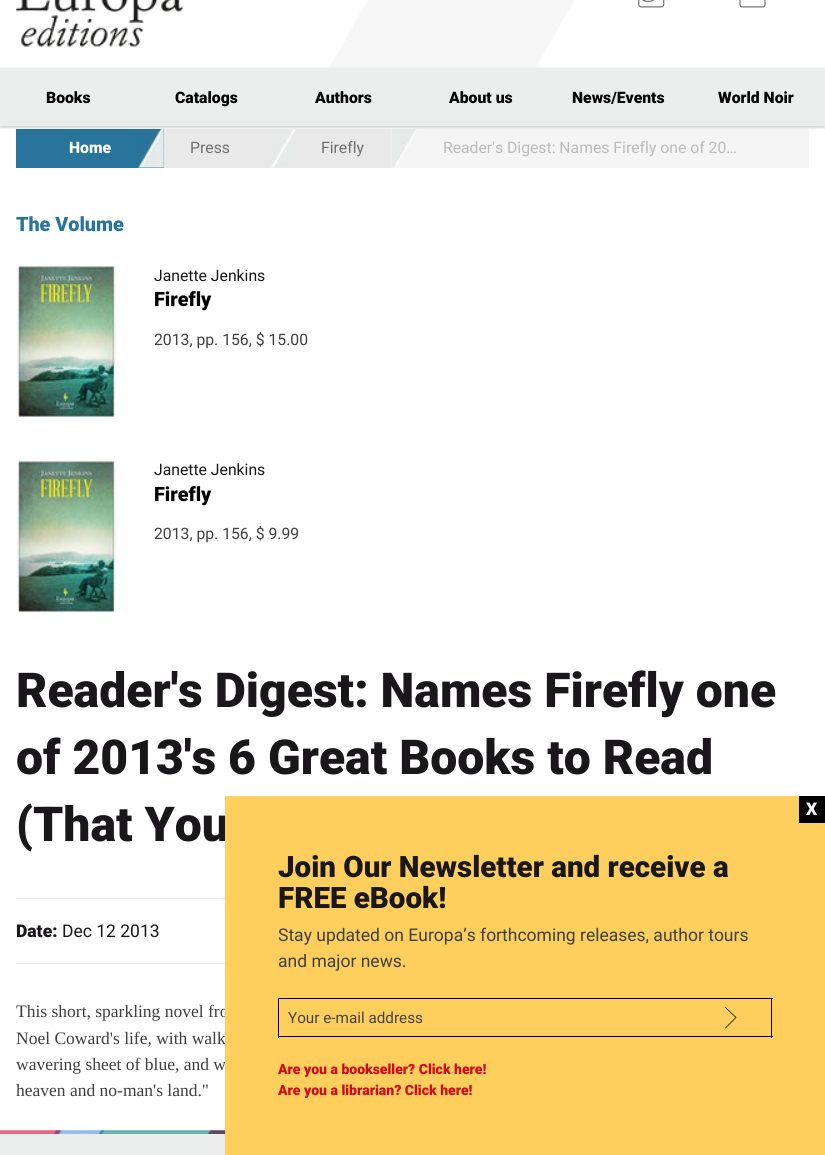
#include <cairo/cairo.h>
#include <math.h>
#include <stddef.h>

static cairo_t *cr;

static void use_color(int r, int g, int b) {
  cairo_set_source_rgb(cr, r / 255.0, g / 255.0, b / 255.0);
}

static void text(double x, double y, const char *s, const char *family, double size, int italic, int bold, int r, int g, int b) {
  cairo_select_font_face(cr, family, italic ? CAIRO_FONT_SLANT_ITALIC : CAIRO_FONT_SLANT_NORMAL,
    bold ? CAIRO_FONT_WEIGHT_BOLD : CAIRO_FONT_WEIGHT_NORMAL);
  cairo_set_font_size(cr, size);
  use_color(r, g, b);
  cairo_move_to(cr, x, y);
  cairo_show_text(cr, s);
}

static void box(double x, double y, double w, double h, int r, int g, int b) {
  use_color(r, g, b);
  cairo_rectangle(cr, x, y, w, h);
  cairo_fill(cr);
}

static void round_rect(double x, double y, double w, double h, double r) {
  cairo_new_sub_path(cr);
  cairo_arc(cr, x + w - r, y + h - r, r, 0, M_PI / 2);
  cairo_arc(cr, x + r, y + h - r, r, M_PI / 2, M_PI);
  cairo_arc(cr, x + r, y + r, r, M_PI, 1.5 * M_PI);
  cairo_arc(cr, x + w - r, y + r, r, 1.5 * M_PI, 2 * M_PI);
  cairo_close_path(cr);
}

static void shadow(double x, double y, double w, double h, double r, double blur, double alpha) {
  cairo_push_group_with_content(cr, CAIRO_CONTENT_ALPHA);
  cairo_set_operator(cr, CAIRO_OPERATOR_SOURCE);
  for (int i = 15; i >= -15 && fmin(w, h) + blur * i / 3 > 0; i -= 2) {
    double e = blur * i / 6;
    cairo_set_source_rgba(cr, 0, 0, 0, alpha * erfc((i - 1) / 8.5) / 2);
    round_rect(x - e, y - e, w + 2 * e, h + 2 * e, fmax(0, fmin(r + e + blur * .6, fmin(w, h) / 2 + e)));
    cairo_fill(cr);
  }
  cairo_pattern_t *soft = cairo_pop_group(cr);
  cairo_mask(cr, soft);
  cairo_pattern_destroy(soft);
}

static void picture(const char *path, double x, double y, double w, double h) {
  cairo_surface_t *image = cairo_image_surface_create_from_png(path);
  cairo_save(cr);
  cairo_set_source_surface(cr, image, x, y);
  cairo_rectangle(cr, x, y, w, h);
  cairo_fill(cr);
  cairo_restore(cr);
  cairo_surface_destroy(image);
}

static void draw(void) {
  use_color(255, 255, 255);
  cairo_paint(cr);
  picture("img_01.png", 330, 0, 244, 68);
  picture("img_02.png", 16, 0, 167, 47);
  picture("img_03.png", 638, 0, 27, 8);
  picture("img_04.png", 739, 0, 27, 8);
  use_color(0, 0, 0);
  shadow(0, 69, 825, 59, 0, 1, 0.12);
  shadow(0, 69, 825, 59, 0, 2, 0.06);
  box(0, 68, 825, 58, 236, 237, 237);
  box(391, 129, 418, 39, 245, 245, 245);
  box(16, 129, 148, 39, 40, 116, 155);
  picture("img_05.png", 136, 129, 28, 39);
  box(164, 129, 227, 39, 233, 233, 233);
  picture("img_06.png", 271, 129, 25, 39);
  picture("img_07.png", 391, 129, 26, 39);
  picture("img_08.png", 16, 264, 100, 155);
  picture("img_08.png", 16, 459, 100, 155);
  box(16, 898, 209, 1, 233, 233, 233);
  box(16, 963, 209, 1, 233, 233, 233);
  box(0, 1130, 225, 25, 236, 237, 237);
  picture("img_09.png", 0, 1130, 225, 4);
  text(46, 103, "Books", "Roboto Black", 15.75, 0, 0, 0, 0, 0);
  text(175, 103, "Catalogs", "Roboto Black", 15.75, 0, 0, 0, 0, 0);
  text(315, 103, "Authors", "Roboto Black", 15.75, 0, 0, 0, 0, 0);
  text(449, 103, "About us", "Roboto Black", 15.75, 0, 0, 0, 0, 0);
  text(572, 103, "News/Events", "Roboto Black", 15.75, 0, 0, 0, 0, 0);
  text(718, 103, "World Noir", "Roboto Black", 15.75, 0, 0, 0, 0, 0);
  text(69, 153, "Home", "Roboto Black", 15.75, 0, 0, 255, 255, 255);
  text(190, 153, "Press", "Roboto", 15.75, 0, 0, 111, 112, 114);
  text(321, 153, "Firefly", "Roboto", 15.75, 0, 0, 111, 112, 114);
  text(443, 153, "Reader's Digest: Names Firefly one of 20…", "Roboto", 15.75, 0, 0, 187, 187, 187);
  text(16, 231, "The Volume", "Roboto Black", 19.75, 0, 0, 40, 116, 155);
  text(154, 281, "Janette Jenkins", "Roboto", 15.75, 0, 0, 26, 23, 27);
  text(154, 306, "Firefly", "Roboto Black", 19.75, 0, 0, 0, 0, 0);
  text(154, 345, "2013, pp. 156, $ 15.00", "Roboto", 15.75, 0, 0, 62, 63, 64);
  text(154, 475, "Janette Jenkins", "Roboto", 15.75, 0, 0, 26, 23, 27);
  text(154, 501, "Firefly", "Roboto Black", 19.75, 0, 0, 0, 0, 0);
  text(154, 539, "2013, pp. 156, $ 9.99", "Roboto", 15.75, 0, 0, 62, 63, 64);
  text(16, 707, "Reader's Digest: Names Firefly one", "Roboto Black", 48.1, 0, 0, 26, 23, 27);
  text(16, 774, "of 2013's 6 Great Books to Read", "Roboto Black", 48.1, 0, 0, 26, 23, 27);
  text(16, 841, "(That You", "Roboto Black", 48.1, 0, 0, 26, 23, 27);
  text(16, 937, "Date:", "Roboto Black", 17.5, 0, 0, 26, 23, 27);
  text(62, 937, "Dec 12 2013", "Roboto", 17.5, 0, 0, 26, 23, 27);
  text(16, 1017, "This short, sparkling novel fro", "Liberation Serif", 17.5, 0, 0, 62, 63, 64);
  text(16, 1044, "Noel Coward's life, with walk", "Liberation Serif", 17.5, 0, 0, 62, 63, 64);
  text(16, 1070, "wavering sheet of blue, and w", "Liberation Serif", 17.5, 0, 0, 62, 63, 64);
  text(16, 1096, "heaven and no-man's land.\"", "Liberation Serif", 17.5, 0, 0, 62, 63, 64);
  box(225, 796, 600, 359, 254, 207, 93);
  box(799, 796, 26, 27, 0, 0, 0);
  text(806, 815, "X", "Roboto Black", 17.5, 0, 0, 255, 255, 255);
  text(278, 877, "Join Our Newsletter and receive a", "Roboto Black", 29.5, 0, 0, 26, 23, 27);
  text(278, 908, "FREE eBook!", "Roboto Black", 29.5, 0, 0, 26, 23, 27);
  text(278, 941, "Stay updated on Europa’s forthcoming releases, author tours", "Roboto", 17.5, 0, 0, 62, 63, 64);
  text(278, 967, "and major news.", "Roboto", 17.5, 0, 0, 62, 63, 64);
  box(278, 998, 495, 1, 0, 0, 0);
  box(278, 1036, 412, 1, 0, 0, 0);
  box(278, 998, 1, 40, 0, 0, 0);
  text(288, 1023, "Your e-mail address", "Roboto", 15.25, 0, 0, 68, 68, 68);
  box(771, 998, 1, 40, 0, 0, 0);
  box(690, 1036, 83, 1, 0, 0, 0);
  cairo_new_path(cr);
  cairo_move_to(cr, 725, 1028);
  cairo_line_to(cr, 725.5, 1028.5);
  cairo_line_to(cr, 736.5, 1017.5);
  cairo_line_to(cr, 725.5, 1007);
  cairo_line_to(cr, 725, 1007.5);
  cairo_line_to(cr, 735.5, 1017.5);
  cairo_close_path(cr);
  cairo_fill(cr);
  text(278, 1074, "Are you a bookseller? Click here!", "Roboto Black", 14, 0, 0, 208, 9, 28);
  text(278, 1095, "Are you a librarian? Click here!", "Roboto Black", 14, 0, 0, 208, 9, 28);
}

int main(void) {
  cairo_surface_t *surface = cairo_image_surface_create(CAIRO_FORMAT_RGB24, 825, 1155);
  cr = cairo_create(surface);
  cairo_font_options_t *options = cairo_font_options_create();
  cairo_font_options_set_hint_metrics(options, CAIRO_HINT_METRICS_OFF);
  cairo_font_options_set_hint_style(options, CAIRO_HINT_STYLE_NONE);
  cairo_set_font_options(cr, options);
  cairo_set_miter_limit(cr, 4);
  draw();
  cairo_surface_write_to_png(surface, "out.png");
  cairo_font_options_destroy(options);
  cairo_destroy(cr);
  cairo_surface_destroy(surface);
  return 0;
}
